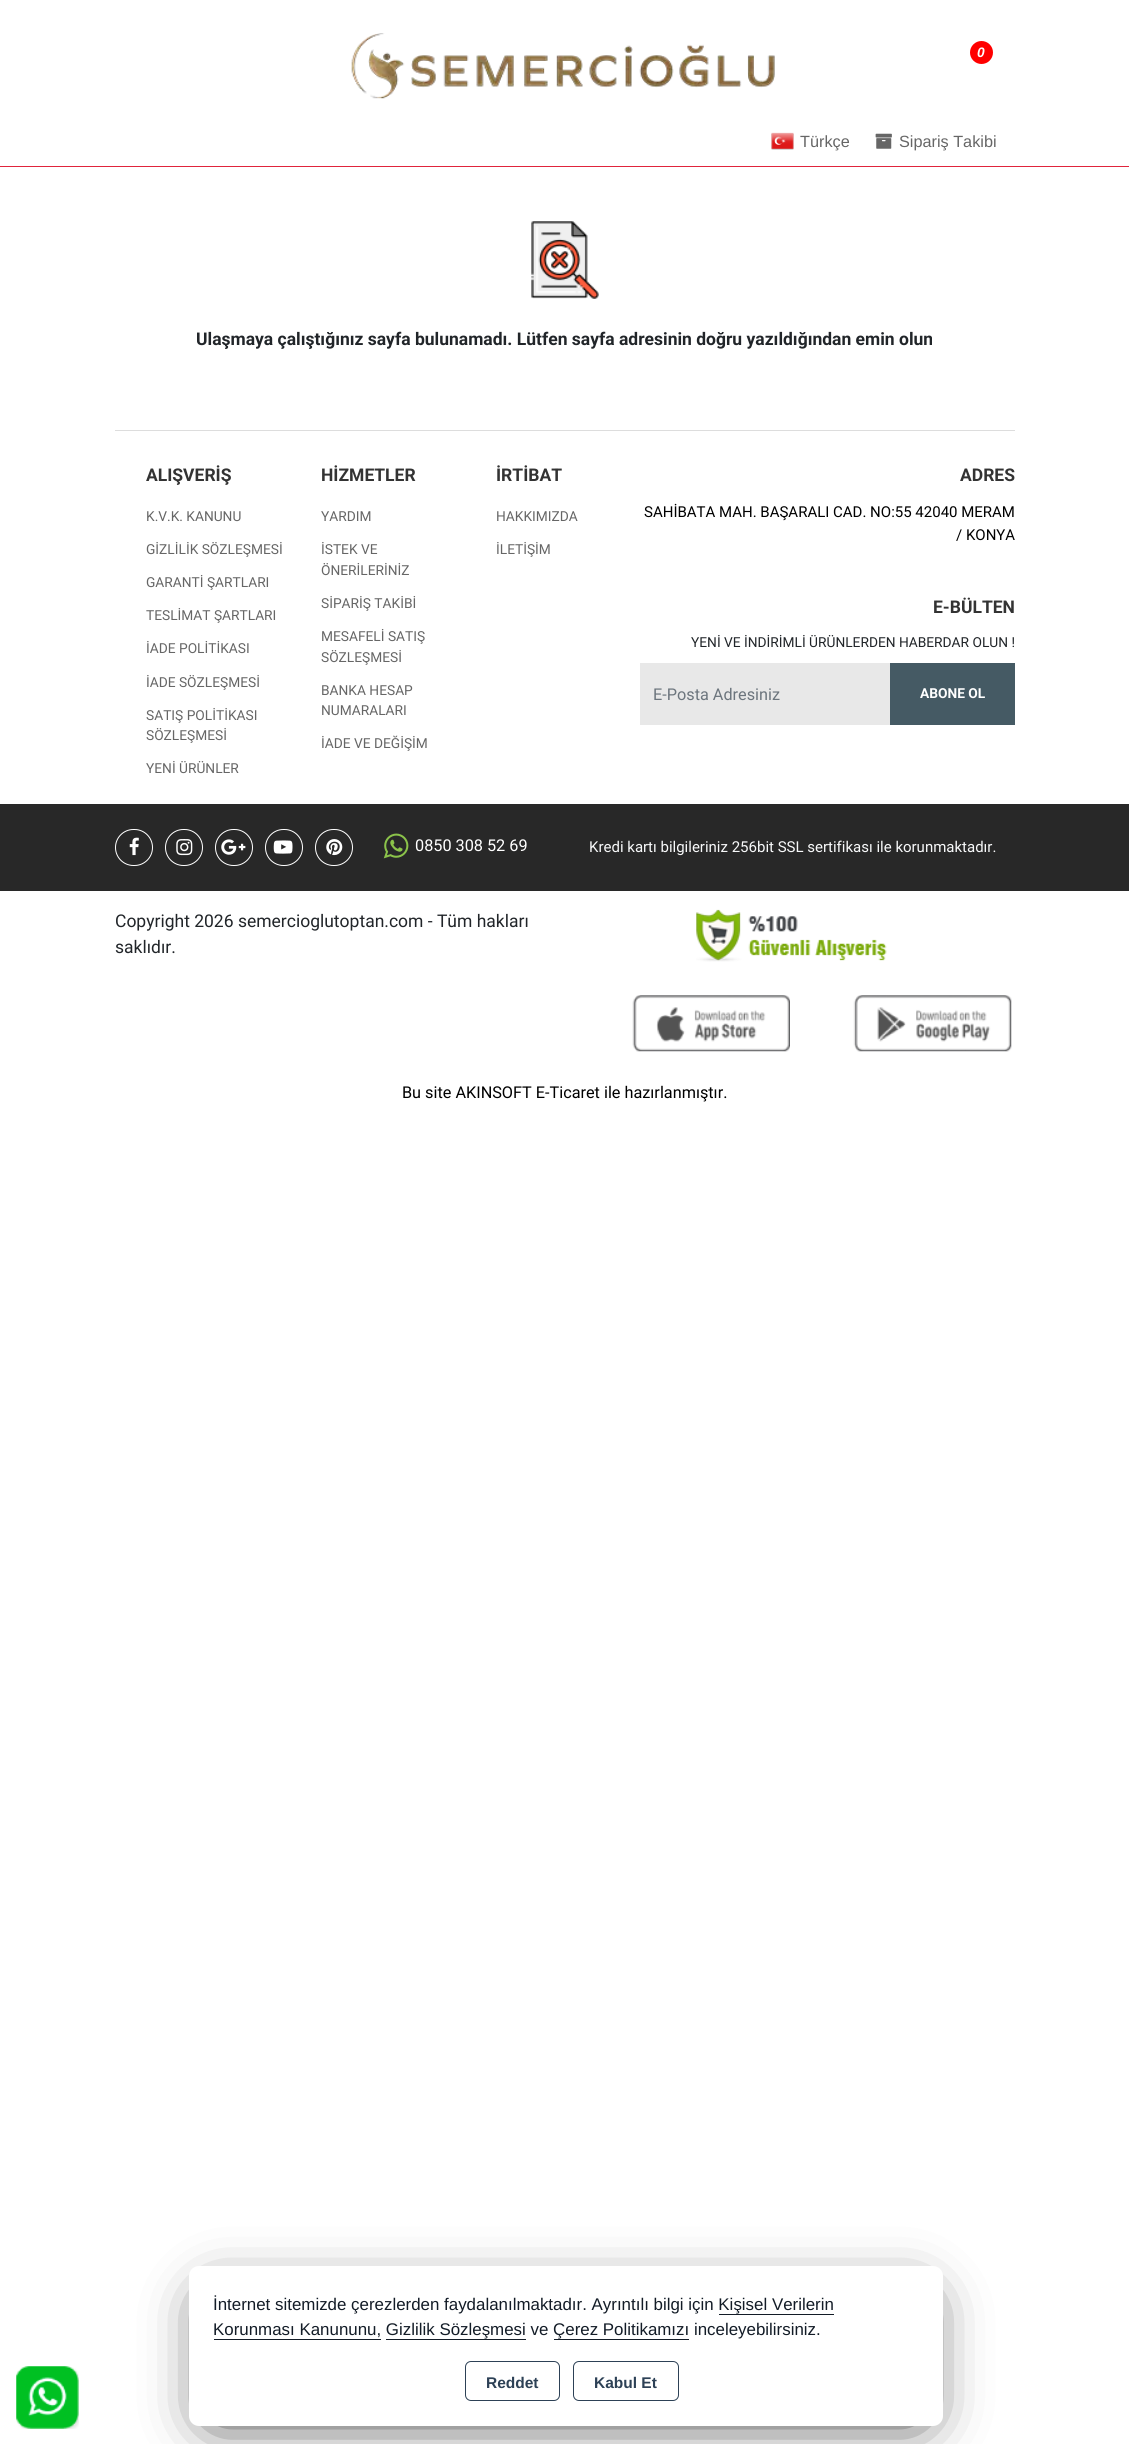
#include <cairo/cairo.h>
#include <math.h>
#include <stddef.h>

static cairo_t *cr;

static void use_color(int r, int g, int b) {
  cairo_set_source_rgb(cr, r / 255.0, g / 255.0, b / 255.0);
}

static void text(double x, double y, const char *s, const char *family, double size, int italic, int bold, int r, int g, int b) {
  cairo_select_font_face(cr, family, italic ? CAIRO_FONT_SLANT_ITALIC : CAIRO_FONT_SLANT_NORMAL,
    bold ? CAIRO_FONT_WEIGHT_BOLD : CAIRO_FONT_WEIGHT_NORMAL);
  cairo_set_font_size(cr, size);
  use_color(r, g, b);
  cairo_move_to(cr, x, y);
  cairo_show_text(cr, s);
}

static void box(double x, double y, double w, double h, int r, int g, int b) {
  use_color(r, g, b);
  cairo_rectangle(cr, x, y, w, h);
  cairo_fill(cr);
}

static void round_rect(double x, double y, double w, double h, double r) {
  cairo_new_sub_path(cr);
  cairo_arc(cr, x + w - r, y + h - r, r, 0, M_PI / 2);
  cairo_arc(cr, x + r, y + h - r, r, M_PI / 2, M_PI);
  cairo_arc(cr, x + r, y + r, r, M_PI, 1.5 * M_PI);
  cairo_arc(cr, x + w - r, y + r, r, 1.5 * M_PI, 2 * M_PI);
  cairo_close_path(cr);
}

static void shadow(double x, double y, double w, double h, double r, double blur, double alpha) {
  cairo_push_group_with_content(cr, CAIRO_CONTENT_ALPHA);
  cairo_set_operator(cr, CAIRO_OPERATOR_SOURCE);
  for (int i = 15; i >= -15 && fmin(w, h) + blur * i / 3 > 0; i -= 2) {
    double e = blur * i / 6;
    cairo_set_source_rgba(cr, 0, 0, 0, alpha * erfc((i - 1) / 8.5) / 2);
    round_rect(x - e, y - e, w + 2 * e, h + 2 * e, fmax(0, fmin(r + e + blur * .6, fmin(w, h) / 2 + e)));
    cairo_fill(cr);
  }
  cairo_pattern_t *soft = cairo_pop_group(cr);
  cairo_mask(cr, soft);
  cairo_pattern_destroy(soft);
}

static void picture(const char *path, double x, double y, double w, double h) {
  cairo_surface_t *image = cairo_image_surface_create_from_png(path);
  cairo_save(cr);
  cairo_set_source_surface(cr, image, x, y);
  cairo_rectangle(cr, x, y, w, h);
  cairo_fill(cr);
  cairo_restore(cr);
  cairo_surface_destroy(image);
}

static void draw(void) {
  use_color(255, 255, 255);
  cairo_paint(cr);
  box(0, 166, 1129, 1, 224, 36, 60);
  picture("img_01.png", 351, 33, 424, 66);
  use_color(255, 0, 0);
  cairo_arc(cr, 981.5, 52.5, 11.5, 0, 2 * M_PI);
  cairo_fill(cr);
  picture("img_02.png", 771, 132, 23, 18);
  picture("img_03.png", 875, 133, 17, 16);
  picture("img_04.png", 531, 221, 68, 78);
  box(115, 430, 900, 1, 221, 221, 221);
  box(640, 663, 250, 62, 232, 232, 232);
  box(890, 663, 125, 62, 69, 90, 100);
  box(0, 804, 1129, 87, 40, 40, 40);
  round_rect(115.5, 829.5, 37, 36, 18);
  use_color(255, 255, 255);
  cairo_set_line_width(cr, 1);
  cairo_stroke(cr);
  picture("img_05.png", 129, 837, 10, 19);
  round_rect(165.5, 829.5, 37, 36, 18);
  cairo_stroke(cr);
  picture("img_06.png", 176, 839, 17, 17);
  round_rect(215.5, 829.5, 37, 36, 18);
  cairo_stroke(cr);
  picture("img_07.png", 221, 839, 25, 16);
  round_rect(265.5, 829.5, 37, 36, 18);
  cairo_stroke(cr);
  picture("img_08.png", 273, 840, 20, 14);
  round_rect(315.5, 829.5, 37, 36, 18);
  cairo_stroke(cr);
  picture("img_09.png", 326, 839, 17, 17);
  picture("img_10.png", 383, 833, 26, 26);
  picture("img_11.png", 696, 909, 191, 53);
  picture("img_12.png", 632, 995, 158, 57);
  picture("img_13.png", 853, 995, 159, 57);
  picture("img_14.png", 16, 2366, 63, 63);
  use_color(0, 0, 0);
  shadow(214, 2304, 704, 110, 0, 31, 1);
  use_color(255, 255, 255);
  round_rect(189, 2266, 754, 160, 10);
  cairo_fill(cr);
  box(719, 2314, 115, 1, 19, 28, 39);
  box(214, 2339, 167, 1, 19, 28, 39);
  box(386, 2339, 140, 1, 19, 28, 39);
  box(554, 2339, 135, 1, 19, 28, 39);
  round_rect(465.5, 2361.5, 94, 39, 5.5);
  use_color(45, 65, 86);
  cairo_stroke(cr);
  round_rect(573.5, 2361.5, 105, 39, 5.5);
  cairo_stroke(cr);
  text(977, 57, "0", "Liberation Sans", 13.75, 1, 1, 255, 255, 255);
  text(800, 147, "Türkçe", "Liberation Sans", 16.25, 0, 0, 102, 102, 102);
  text(899, 147, "Sipariş Takibi", "Liberation Sans", 16.25, 0, 0, 102, 102, 102);
  text(196, 345, "Ulaşmaya çalıştığınız sayfa bulunamadı. Lütfen sayfa adresinin doğru yazıldığından emin olun", "Roboto", 17.5, 0, 1, 33, 37, 41);
  text(146, 481, "ALIŞVERİŞ", "Roboto", 17.5, 0, 1, 51, 51, 51);
  text(146, 521, "K.V.K. KANUNU", "Roboto", 13.75, 0, 0, 102, 102, 102);
  text(146, 554, "GİZLİLİK SÖZLEŞMESİ", "Roboto", 13.75, 0, 0, 102, 102, 102);
  text(146, 587, "GARANTİ ŞARTLARI", "Roboto", 13.75, 0, 0, 102, 102, 102);
  text(146, 620, "TESLİMAT ŞARTLARI", "Roboto", 13.75, 0, 0, 102, 102, 102);
  text(146, 653, "İADE POLİTİKASI", "Roboto", 13.75, 0, 0, 102, 102, 102);
  text(146, 687, "İADE SÖZLEŞMESİ", "Roboto", 13.75, 0, 0, 102, 102, 102);
  text(146, 720, "SATIŞ POLİTİKASI", "Roboto", 13.75, 0, 0, 102, 102, 102);
  text(146, 740, "SÖZLEŞMESİ", "Roboto", 13.75, 0, 0, 102, 102, 102);
  text(146, 773, "YENİ ÜRÜNLER", "Roboto", 13.75, 0, 0, 102, 102, 102);
  text(321, 481, "HİZMETLER", "Roboto", 17.5, 0, 1, 51, 51, 51);
  text(321, 521, "YARDIM", "Roboto", 13.75, 0, 0, 102, 102, 102);
  text(321, 554, "İSTEK VE", "Roboto", 13.75, 0, 0, 102, 102, 102);
  text(321, 575, "ÖNERİLERİNİZ", "Roboto", 13.75, 0, 0, 102, 102, 102);
  text(321, 608, "SİPARİŞ TAKİBİ", "Roboto", 13.75, 0, 0, 102, 102, 102);
  text(321, 641, "MESAFELİ SATIŞ", "Roboto", 13.75, 0, 0, 102, 102, 102);
  text(321, 662, "SÖZLEŞMESİ", "Roboto", 13.75, 0, 0, 102, 102, 102);
  text(321, 695, "BANKA HESAP", "Roboto", 13.75, 0, 0, 102, 102, 102);
  text(321, 715, "NUMARALARI", "Roboto", 13.75, 0, 0, 102, 102, 102);
  text(321, 748, "İADE VE DEĞİŞİM", "Roboto", 13.75, 0, 0, 102, 102, 102);
  text(496, 481, "İRTİBAT", "Roboto", 17.5, 0, 1, 51, 51, 51);
  text(496, 521, "HAKKIMIZDA", "Roboto", 13.75, 0, 0, 102, 102, 102);
  text(496, 554, "İLETİŞİM", "Roboto", 13.75, 0, 0, 102, 102, 102);
  text(960, 481, "ADRES", "Roboto", 17.5, 0, 1, 51, 51, 51);
  text(644, 517, "SAHİBATA MAH. BAŞARALI CAD. NO:55 42040 MERAM", "Roboto", 15, 0, 0, 0, 0, 0);
  text(956, 540, "/ KONYA", "Roboto", 15, 0, 0, 0, 0, 0);
  text(933, 613, "E-BÜLTEN", "Roboto", 17.5, 0, 1, 51, 51, 51);
  text(691, 647, "YENİ VE İNDİRİMLİ ÜRÜNLERDEN HABERDAR OLUN !", "Roboto", 13.75, 0, 0, 33, 37, 41);
  text(653, 700, "E-Posta Adresiniz", "Roboto", 16.25, 0, 0, 108, 117, 125);
  text(920, 698, "ABONE OL", "Roboto", 13.75, 0, 1, 255, 255, 255);
  text(415, 851, "0850 308 52 69", "Roboto", 16.25, 0, 0, 255, 255, 255);
  text(589, 852, "Kredi kartı bilgileriniz 256bit SSL sertifikası ile korunmaktadır.", "Roboto", 15, 0, 0, 248, 249, 250);
  text(115, 927, "Copyright 2026 semercioglutoptan.com - Tüm hakları", "Roboto", 17.5, 0, 0, 33, 37, 41);
  text(115, 953, "saklıdır.", "Roboto", 17.5, 0, 0, 33, 37, 41);
  text(402, 1098, "Bu site AKINSOFT E-Ticaret ile hazırlanmıştır.", "Roboto", 16.25, 0, 0, 0, 0, 0);
  text(213, 2310, "İnternet sitemizde çerezlerden faydalanılmaktadır. Ayrıntılı bilgi için Kişisel Verilerin", "Liberation Sans", 16.9, 0, 0, 19, 28, 39);
  text(213, 2335, "Korunması Kanununu, Gizlilik Sözleşmesi ve Çerez Politikamızı inceleyebilirsiniz.", "Liberation Sans", 16.9, 0, 0, 19, 28, 39);
  text(486, 2388, "Reddet", "Liberation Sans", 15.5, 0, 1, 45, 65, 86);
  text(594, 2388, "Kabul Et", "Liberation Sans", 15.5, 0, 1, 45, 65, 86);
}

int main(void) {
  cairo_surface_t *surface = cairo_image_surface_create(CAIRO_FORMAT_RGB24, 1129, 2444);
  cr = cairo_create(surface);
  cairo_font_options_t *options = cairo_font_options_create();
  cairo_font_options_set_hint_metrics(options, CAIRO_HINT_METRICS_OFF);
  cairo_font_options_set_hint_style(options, CAIRO_HINT_STYLE_NONE);
  cairo_set_font_options(cr, options);
  cairo_set_miter_limit(cr, 4);
  draw();
  cairo_surface_write_to_png(surface, "out.png");
  cairo_font_options_destroy(options);
  cairo_destroy(cr);
  cairo_surface_destroy(surface);
  return 0;
}
